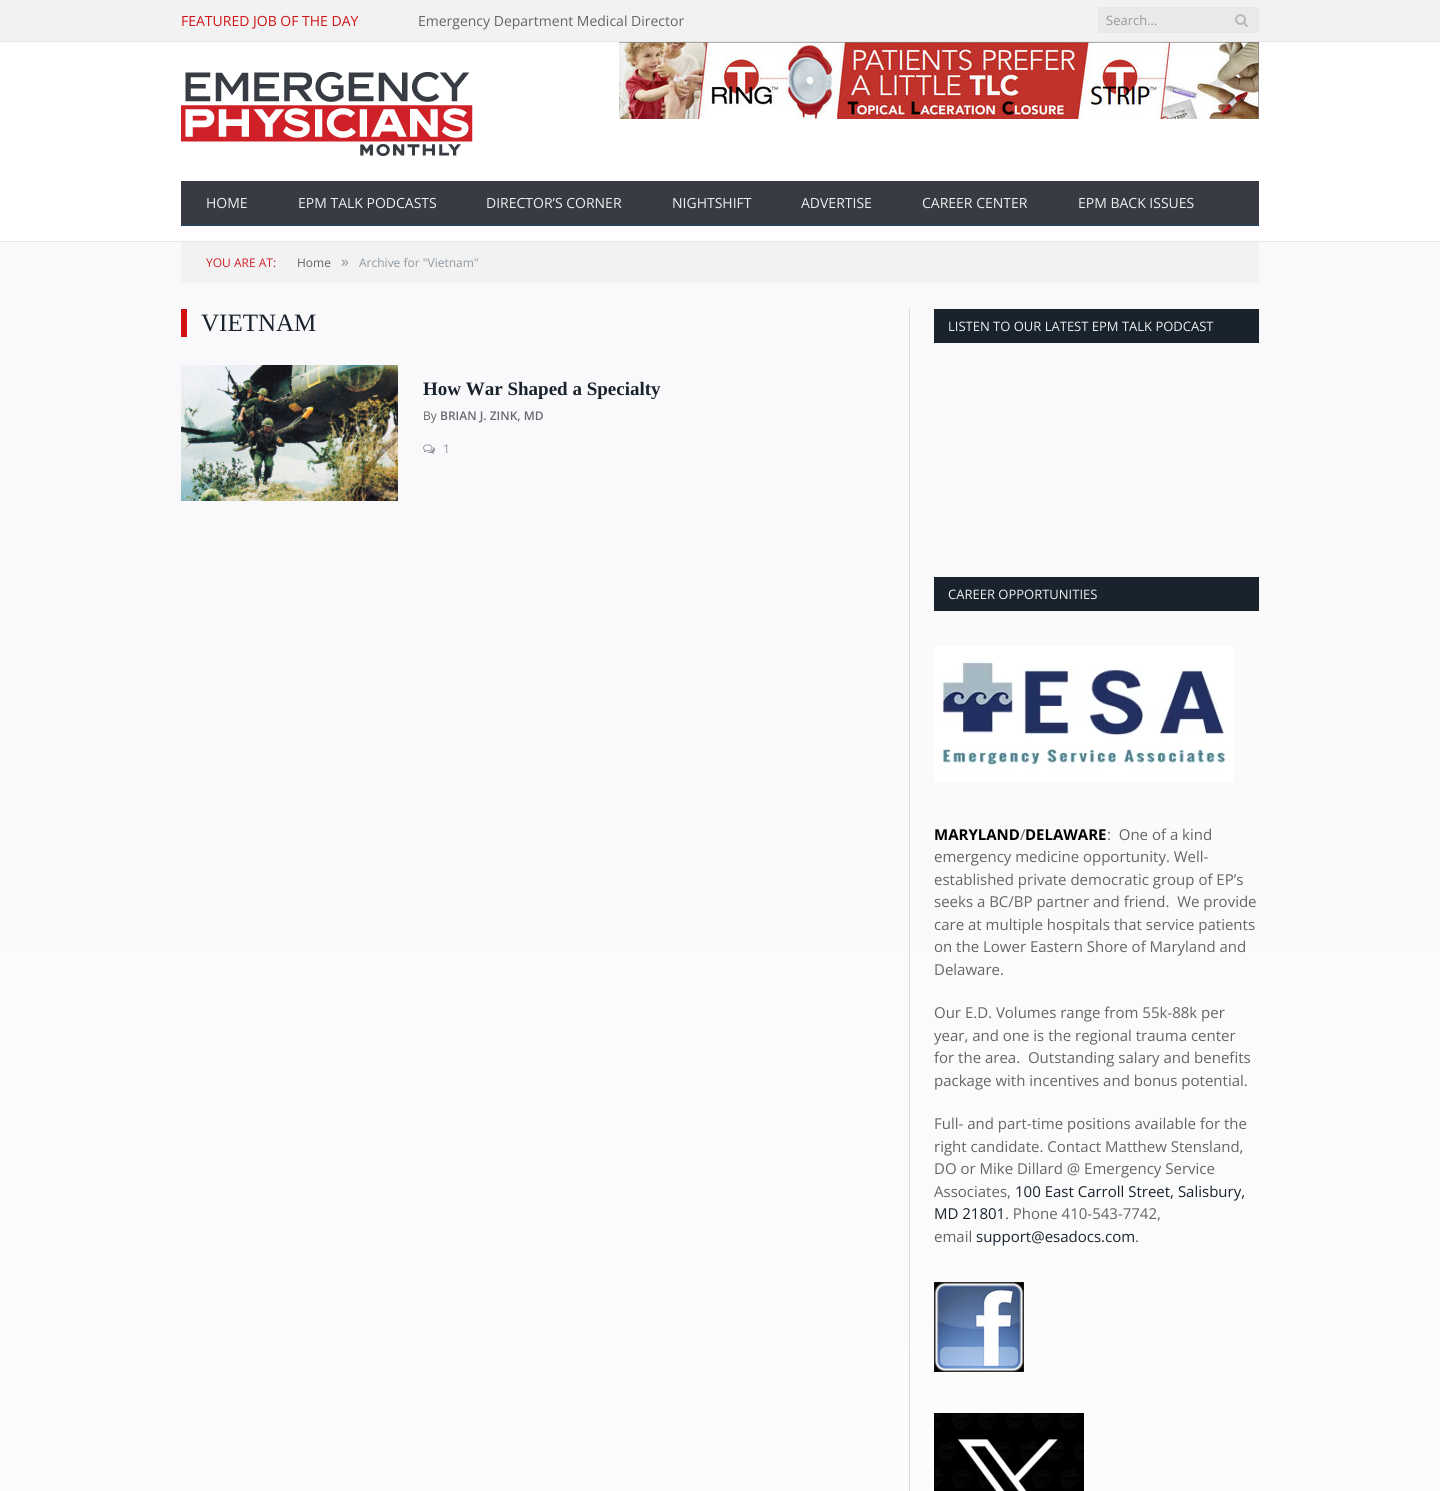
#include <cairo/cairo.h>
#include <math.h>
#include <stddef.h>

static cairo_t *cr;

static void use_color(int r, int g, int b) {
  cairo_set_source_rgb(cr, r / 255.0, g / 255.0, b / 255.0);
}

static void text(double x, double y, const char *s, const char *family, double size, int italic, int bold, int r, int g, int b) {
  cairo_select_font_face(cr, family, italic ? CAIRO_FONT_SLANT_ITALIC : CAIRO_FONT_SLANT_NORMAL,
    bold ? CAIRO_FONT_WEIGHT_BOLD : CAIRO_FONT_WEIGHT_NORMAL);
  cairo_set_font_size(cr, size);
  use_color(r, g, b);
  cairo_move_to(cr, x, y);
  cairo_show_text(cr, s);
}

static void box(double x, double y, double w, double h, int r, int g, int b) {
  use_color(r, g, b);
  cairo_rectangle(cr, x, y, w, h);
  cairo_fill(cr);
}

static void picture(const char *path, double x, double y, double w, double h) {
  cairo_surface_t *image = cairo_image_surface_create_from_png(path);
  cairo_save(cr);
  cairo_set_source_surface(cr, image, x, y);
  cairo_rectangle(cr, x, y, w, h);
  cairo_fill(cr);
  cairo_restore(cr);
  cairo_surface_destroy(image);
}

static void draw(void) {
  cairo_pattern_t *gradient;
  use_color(255, 255, 255);
  cairo_paint(cr);
  gradient = cairo_pattern_create_linear(720, 0, 720, 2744);
  cairo_pattern_add_color_stop_rgba(gradient, 0, 0.973, 0.973, 0.98, 1);
  cairo_pattern_add_color_stop_rgba(gradient, 1, 1, 1, 1, 1);
  cairo_set_source(cr, gradient);
  cairo_pattern_destroy(gradient);
  cairo_rectangle(cr, 0, 242, 1440, 1249);
  cairo_fill(cr);
  box(0, 0, 1440, 41, 242, 242, 242);
  box(0, 41, 1440, 1, 231, 231, 231);
  box(1098, 7, 161, 26, 233, 233, 233);
  picture("img_01.png", 1235, 14, 13, 13);
  box(0, 241, 1440, 1, 231, 231, 231);
  picture("img_02.png", 181, 72, 292, 84);
  picture("img_03.png", 619, 42, 640, 77);
  box(181, 181, 1078, 43, 56, 59, 67);
  box(181, 224, 1078, 2, 47, 65, 84);
  box(181, 242, 1078, 41, 242, 242, 242);
  box(181, 309, 6, 28, 208, 20, 19);
  picture("img_04.png", 181, 365, 217, 136);
  picture("img_05.png", 423, 444, 12, 10);
  box(909, 309, 1, 1182, 217, 217, 217);
  box(934, 309, 325, 34, 25, 35, 45);
  box(934, 577, 325, 34, 25, 35, 45);
  picture("img_06.png", 934, 646, 300, 136);
  picture("img_07.png", 934, 1282, 90, 90);
  picture("img_08.png", 934, 1413, 150, 78);
  text(181, 26, "FEATURED JOB OF THE DAY", "Open Sans", 14, 0, 0, 208, 19, 23);
  text(418, 26, "Emergency Department Medical Director", "Open Sans", 14, 0, 0, 101, 101, 101);
  text(1106, 25, "Search...", "Open Sans", 13, 0, 0, 153, 153, 153);
  text(206, 208, "HOME", "Open Sans", 14, 0, 0, 239, 239, 239);
  text(298, 208, "EPM TALK PODCASTS", "Open Sans", 14, 0, 0, 239, 239, 239);
  text(486, 208, "DIRECTOR’S CORNER", "Open Sans", 14, 0, 0, 239, 239, 239);
  text(672, 208, "NIGHTSHIFT", "Open Sans", 14, 0, 0, 239, 239, 239);
  text(801, 208, "ADVERTISE", "Open Sans", 14, 0, 0, 239, 239, 239);
  text(922, 208, "CAREER CENTER", "Open Sans", 14, 0, 0, 239, 239, 239);
  text(1078, 208, "EPM BACK ISSUES", "Open Sans", 14, 0, 0, 239, 239, 239);
  text(206, 267, "YOU ARE AT:", "Open Sans", 12, 0, 0, 208, 33, 40);
  text(297, 267, "Home", "Open Sans", 12, 0, 0, 101, 101, 101);
  text(341, 267, "»", "Open Sans", 16, 0, 0, 141, 151, 161);
  text(359, 267, "Archive for \"Vietnam\"", "Open Sans", 12, 0, 0, 141, 151, 161);
  text(201, 331, "VIETNAM", "Liberation Serif", 25, 0, 0, 25, 35, 45);
  text(423, 395, "How War Shaped a Specialty", "Liberation Serif", 19, 0, 1, 25, 35, 45);
  text(423, 420, "By", "Open Sans", 12, 0, 0, 101, 101, 101);
  text(440, 420, "BRIAN J. ZINK, MD", "Open Sans SemiBold", 12, 0, 0, 102, 106, 110);
  text(443, 453, "1", "Open Sans", 12, 0, 0, 145, 145, 151);
  text(948, 331, "LISTEN TO OUR LATEST EPM TALK PODCAST", "Open Sans", 13, 0, 0, 239, 239, 239);
  text(948, 599, "CAREER OPPORTUNITIES", "Open Sans", 13, 0, 0, 239, 239, 239);
  text(934, 840, "MARYLAND", "Open Sans", 15, 0, 1, 0, 0, 0);
  text(1020, 840, "/", "Open Sans", 15, 0, 0, 101, 101, 101);
  text(1025, 840, "DELAWARE", "Open Sans", 15, 0, 1, 0, 0, 0);
  text(1107, 840, ":  One of a kind", "Open Sans", 15, 0, 0, 101, 101, 101);
  text(934, 862, "emergency medicine opportunity. Well-", "Open Sans", 15, 0, 0, 101, 101, 101);
  text(934, 885, "established private democratic group of EP’s", "Open Sans", 15, 0, 0, 101, 101, 101);
  text(934, 907, "seeks a BC/BP partner and friend.  We provide", "Open Sans", 15, 0, 0, 101, 101, 101);
  text(934, 930, "care at multiple hospitals that service patients", "Open Sans", 15, 0, 0, 101, 101, 101);
  text(934, 952, "on the Lower Eastern Shore of Maryland and", "Open Sans", 15, 0, 0, 101, 101, 101);
  text(934, 975, "Delaware.", "Open Sans", 15, 0, 0, 101, 101, 101);
  text(934, 1018, "Our E.D. Volumes range from 55k-88k per", "Open Sans", 15, 0, 0, 101, 101, 101);
  text(934, 1041, "year, and one is the regional trauma center", "Open Sans", 15, 0, 0, 101, 101, 101);
  text(934, 1063, "for the area.  Outstanding salary and benefits", "Open Sans", 15, 0, 0, 101, 101, 101);
  text(934, 1086, "package with incentives and bonus potential.", "Open Sans", 15, 0, 0, 101, 101, 101);
  text(934, 1129, "Full- and part-time positions available for the", "Open Sans", 15, 0, 0, 101, 101, 101);
  text(934, 1152, "right candidate. Contact Matthew Stensland,", "Open Sans", 15, 0, 0, 101, 101, 101);
  text(934, 1174, "DO or Mike Dillard @ Emergency Service", "Open Sans", 15, 0, 0, 101, 101, 101);
  text(934, 1197, "Associates,", "Open Sans", 15, 0, 0, 101, 101, 101);
  text(1015, 1197, "100 East Carroll Street, Salisbury,", "Open Sans", 15, 0, 0, 25, 35, 45);
  text(934, 1219, "MD 21801", "Open Sans", 15, 0, 0, 25, 35, 45);
  text(1005, 1219, ". Phone 410-543-7742,", "Open Sans", 15, 0, 0, 101, 101, 101);
  text(934, 1242, "email", "Open Sans", 15, 0, 0, 101, 101, 101);
  text(976, 1242, "support@esadocs.com", "Open Sans", 15, 0, 0, 25, 35, 45);
  text(1135, 1242, ".", "Open Sans", 15, 0, 0, 101, 101, 101);
}

int main(void) {
  cairo_surface_t *surface = cairo_image_surface_create(CAIRO_FORMAT_RGB24, 1440, 1491);
  cr = cairo_create(surface);
  cairo_font_options_t *options = cairo_font_options_create();
  cairo_font_options_set_hint_metrics(options, CAIRO_HINT_METRICS_OFF);
  cairo_font_options_set_hint_style(options, CAIRO_HINT_STYLE_NONE);
  cairo_set_font_options(cr, options);
  cairo_set_miter_limit(cr, 4);
  draw();
  cairo_surface_write_to_png(surface, "out.png");
  cairo_font_options_destroy(options);
  cairo_destroy(cr);
  cairo_surface_destroy(surface);
  return 0;
}
